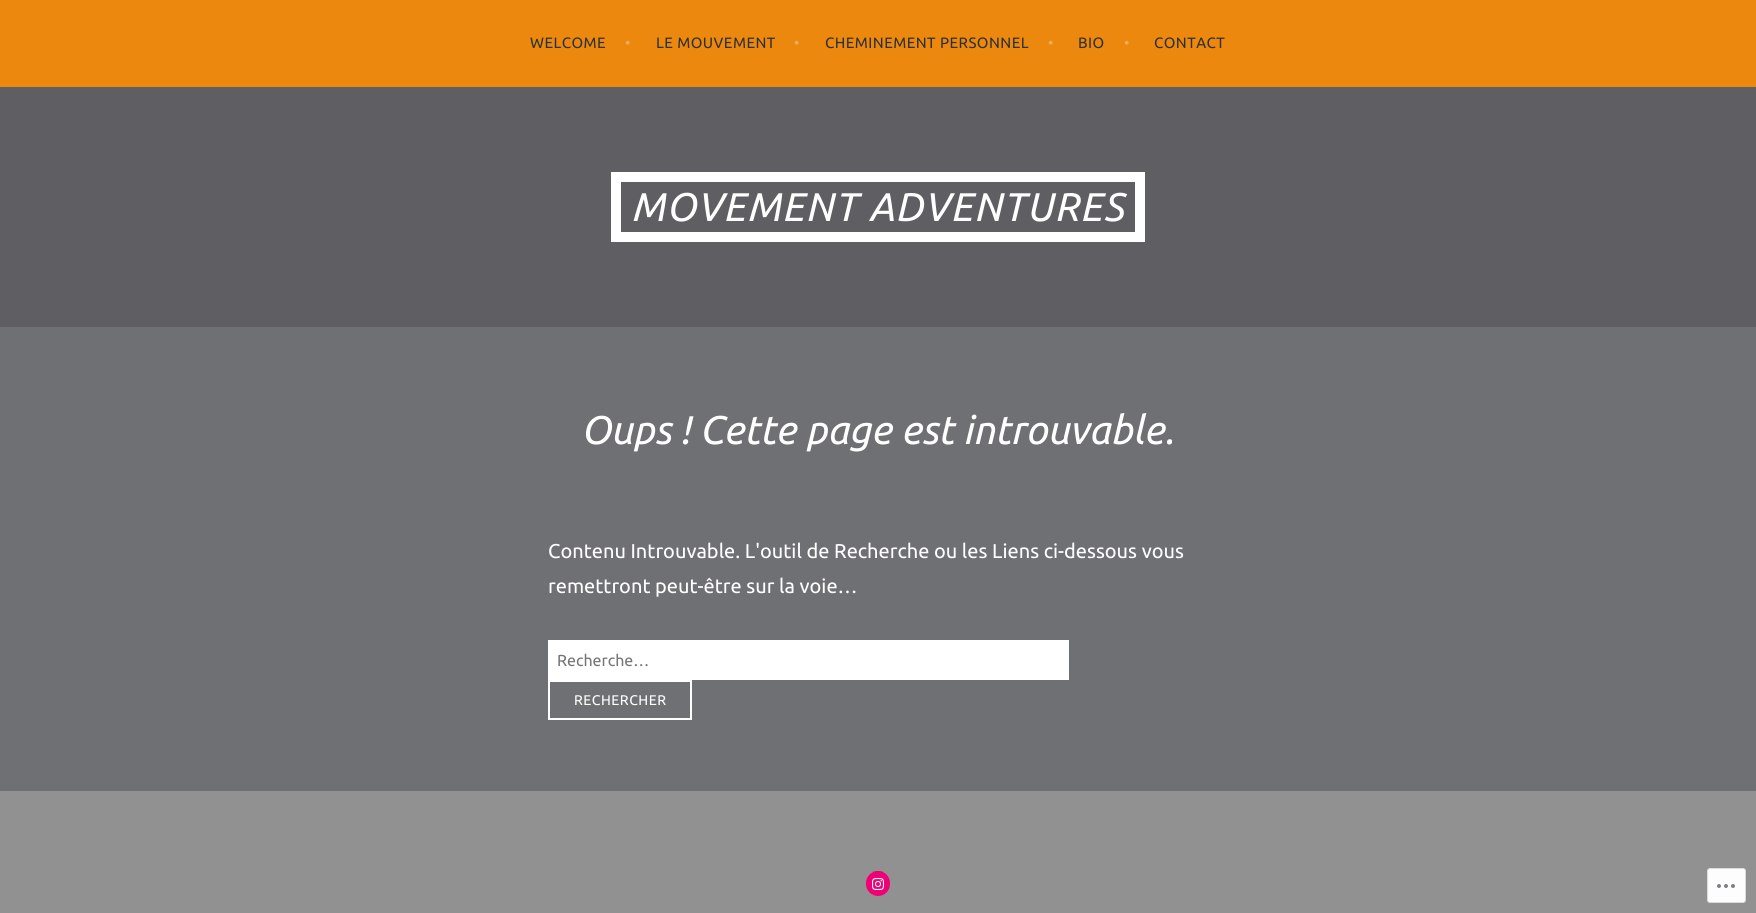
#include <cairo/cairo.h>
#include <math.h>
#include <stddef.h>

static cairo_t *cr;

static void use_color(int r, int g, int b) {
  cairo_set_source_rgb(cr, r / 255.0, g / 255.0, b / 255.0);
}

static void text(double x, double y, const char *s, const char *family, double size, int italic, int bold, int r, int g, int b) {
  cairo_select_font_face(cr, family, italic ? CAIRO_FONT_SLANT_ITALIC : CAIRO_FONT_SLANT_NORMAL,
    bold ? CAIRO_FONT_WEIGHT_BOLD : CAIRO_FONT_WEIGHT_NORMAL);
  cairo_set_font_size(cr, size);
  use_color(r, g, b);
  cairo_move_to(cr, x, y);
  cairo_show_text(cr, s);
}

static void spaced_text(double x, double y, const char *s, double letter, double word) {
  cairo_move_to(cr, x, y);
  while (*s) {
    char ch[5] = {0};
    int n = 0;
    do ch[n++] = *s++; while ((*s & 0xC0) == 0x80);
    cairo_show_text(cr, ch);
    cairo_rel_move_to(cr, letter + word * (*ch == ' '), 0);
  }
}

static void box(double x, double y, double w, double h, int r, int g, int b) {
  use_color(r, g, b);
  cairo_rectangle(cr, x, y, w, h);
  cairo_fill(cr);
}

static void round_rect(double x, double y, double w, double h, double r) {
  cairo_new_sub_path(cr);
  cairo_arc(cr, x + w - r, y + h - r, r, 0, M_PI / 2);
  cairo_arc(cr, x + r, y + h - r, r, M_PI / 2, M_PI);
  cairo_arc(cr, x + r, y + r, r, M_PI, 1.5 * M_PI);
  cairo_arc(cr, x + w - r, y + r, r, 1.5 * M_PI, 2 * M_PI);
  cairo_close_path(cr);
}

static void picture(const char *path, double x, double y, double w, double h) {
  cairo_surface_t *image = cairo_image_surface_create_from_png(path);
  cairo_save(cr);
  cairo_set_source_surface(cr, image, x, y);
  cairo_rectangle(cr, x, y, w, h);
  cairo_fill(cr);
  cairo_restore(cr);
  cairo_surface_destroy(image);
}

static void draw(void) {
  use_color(111, 112, 116);
  cairo_paint(cr);
  box(0, 0, 1756, 87, 236, 136, 13);
  box(0, 87, 1756, 240, 95, 95, 99);
  cairo_rectangle(cr, 616, 177, 524, 60);
  use_color(255, 255, 255);
  cairo_set_line_width(cr, 10);
  cairo_stroke(cr);
  box(548, 640, 521, 40, 255, 255, 255);
  cairo_rectangle(cr, 549, 681, 142, 38);
  cairo_set_line_width(cr, 2);
  cairo_stroke(cr);
  box(0, 791, 1756, 122, 145, 145, 145);
  use_color(240, 0, 117);
  round_rect(866, 871, 24, 25, 12);
  cairo_fill(cr);
  cairo_set_source_rgba(cr, 0, 0, 0, 0.1);
  cairo_rectangle(cr, 872, 871, 12, 1);
  cairo_fill(cr);
  picture("img_01.png", 872, 878, 12, 12);
  use_color(253, 253, 253);
  round_rect(1707.5, 868.5, 38, 34, 2.5);
  cairo_fill_preserve(cr);
  use_color(219, 219, 220);
  cairo_set_line_width(cr, 1);
  cairo_stroke(cr);
  picture("img_02.png", 1717, 884, 18, 4);
  cairo_select_font_face(cr, "Ubuntu", CAIRO_FONT_SLANT_NORMAL, CAIRO_FONT_WEIGHT_NORMAL);
  cairo_set_font_size(cr, 15);
  use_color(46, 49, 50);
  spaced_text(530, 48, "WELCOME", 0.45, 0);
  use_color(242, 172, 86);
  spaced_text(625, 48, "•", 0.45, 0);
  use_color(46, 49, 50);
  spaced_text(656, 48, "LE MOUVEMENT", 0.45, 0);
  use_color(242, 172, 86);
  spaced_text(794, 48, "•", 0.45, 0);
  use_color(46, 49, 50);
  spaced_text(825, 48, "CHEMINEMENT PERSONNEL", 0.45, 0);
  use_color(242, 172, 86);
  spaced_text(1048, 48, "•", 0.45, 0);
  use_color(46, 49, 50);
  spaced_text(1078, 48, "BIO", 0.45, 0);
  use_color(242, 172, 86);
  spaced_text(1124, 48, "•", 0.45, 0);
  use_color(46, 49, 50);
  spaced_text(1154, 48, "CONTACT", 0.45, 0);
  cairo_select_font_face(cr, "Ubuntu", CAIRO_FONT_SLANT_ITALIC, CAIRO_FONT_WEIGHT_NORMAL);
  cairo_set_font_size(cr, 40);
  use_color(255, 255, 255);
  spaced_text(631, 221, "MOVEMENT ADVENTURES", 1.25, 0);
  text(581, 444, "Oups ! Cette page est introuvable.", "Ubuntu", 40, 1, 0, 255, 255, 255);
  text(548, 558, "Contenu Introuvable. L'outil de Recherche ou les Liens ci-dessous vous", "Ubuntu", 20, 0, 0, 255, 255, 255);
  text(548, 593, "remettront peut-être sur la voie…", "Ubuntu", 20, 0, 0, 255, 255, 255);
  text(557, 666, "Recherche…", "Ubuntu", 16, 0, 0, 117, 117, 117);
  cairo_set_font_size(cr, 14);
  use_color(255, 255, 255);
  spaced_text(574, 705, "RECHERCHER", 0.5, 0);
}

int main(void) {
  cairo_surface_t *surface = cairo_image_surface_create(CAIRO_FORMAT_RGB24, 1756, 913);
  cr = cairo_create(surface);
  cairo_font_options_t *options = cairo_font_options_create();
  cairo_font_options_set_hint_metrics(options, CAIRO_HINT_METRICS_OFF);
  cairo_font_options_set_hint_style(options, CAIRO_HINT_STYLE_NONE);
  cairo_set_font_options(cr, options);
  cairo_set_miter_limit(cr, 4);
  draw();
  cairo_surface_write_to_png(surface, "out.png");
  cairo_font_options_destroy(options);
  cairo_destroy(cr);
  cairo_surface_destroy(surface);
  return 0;
}
